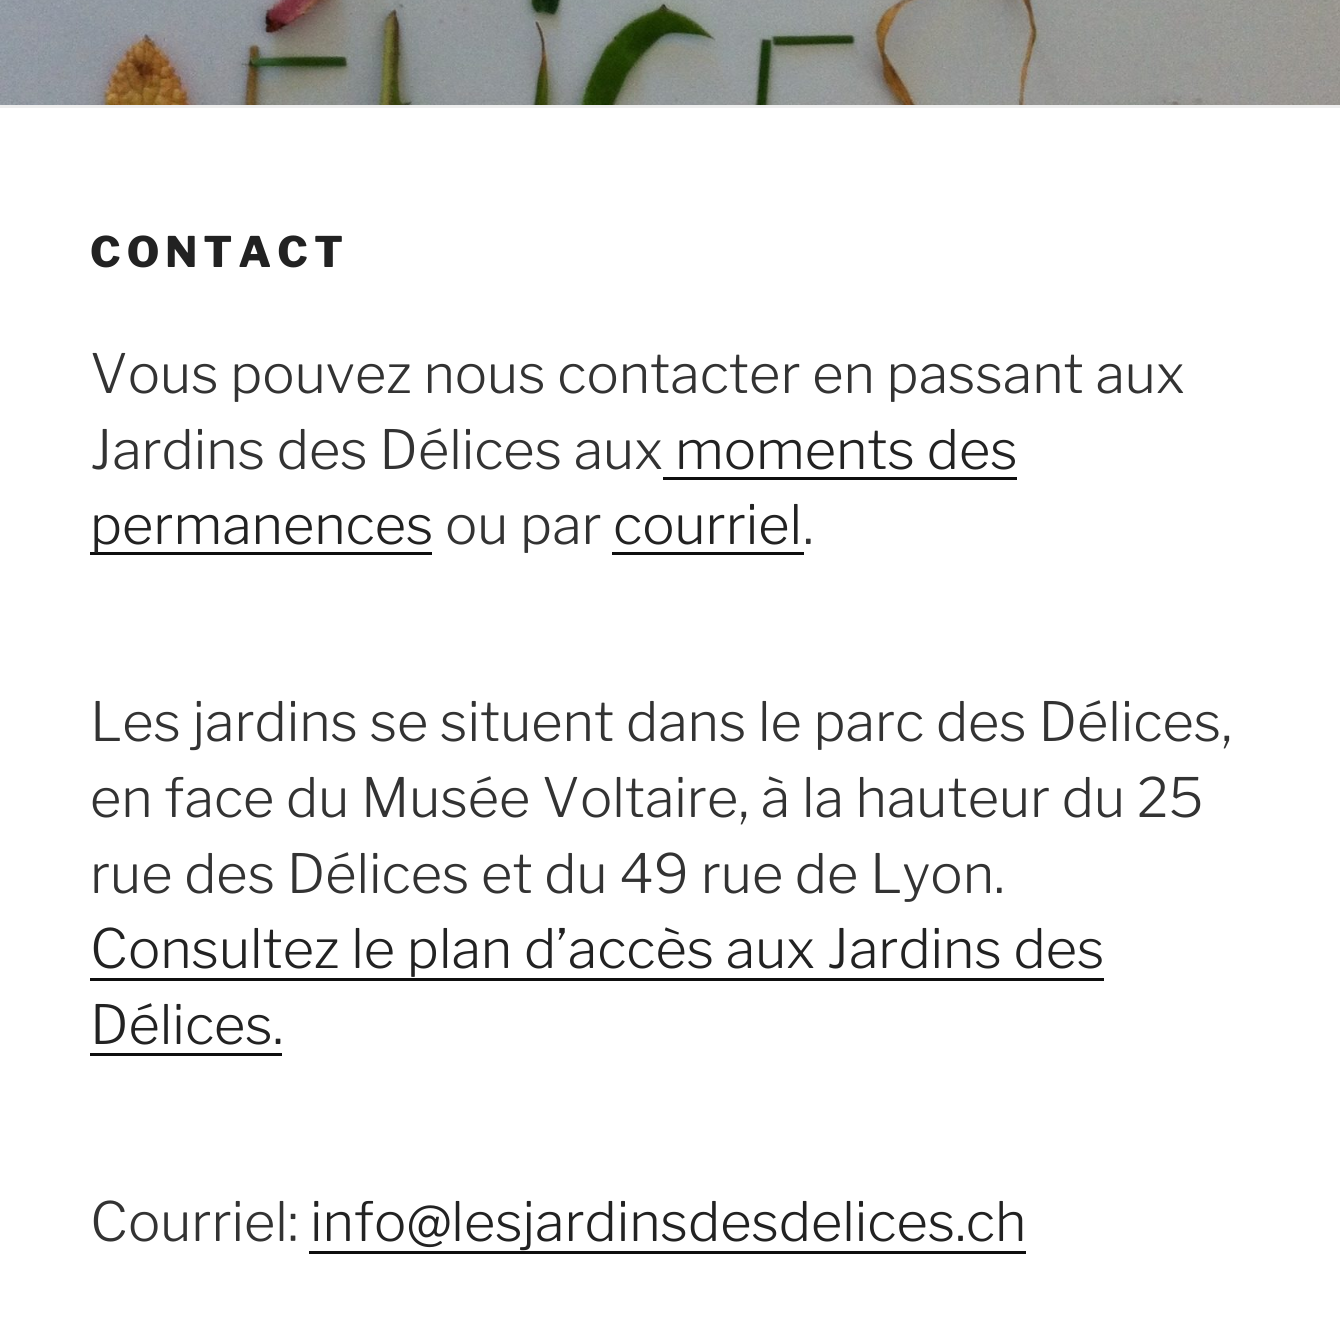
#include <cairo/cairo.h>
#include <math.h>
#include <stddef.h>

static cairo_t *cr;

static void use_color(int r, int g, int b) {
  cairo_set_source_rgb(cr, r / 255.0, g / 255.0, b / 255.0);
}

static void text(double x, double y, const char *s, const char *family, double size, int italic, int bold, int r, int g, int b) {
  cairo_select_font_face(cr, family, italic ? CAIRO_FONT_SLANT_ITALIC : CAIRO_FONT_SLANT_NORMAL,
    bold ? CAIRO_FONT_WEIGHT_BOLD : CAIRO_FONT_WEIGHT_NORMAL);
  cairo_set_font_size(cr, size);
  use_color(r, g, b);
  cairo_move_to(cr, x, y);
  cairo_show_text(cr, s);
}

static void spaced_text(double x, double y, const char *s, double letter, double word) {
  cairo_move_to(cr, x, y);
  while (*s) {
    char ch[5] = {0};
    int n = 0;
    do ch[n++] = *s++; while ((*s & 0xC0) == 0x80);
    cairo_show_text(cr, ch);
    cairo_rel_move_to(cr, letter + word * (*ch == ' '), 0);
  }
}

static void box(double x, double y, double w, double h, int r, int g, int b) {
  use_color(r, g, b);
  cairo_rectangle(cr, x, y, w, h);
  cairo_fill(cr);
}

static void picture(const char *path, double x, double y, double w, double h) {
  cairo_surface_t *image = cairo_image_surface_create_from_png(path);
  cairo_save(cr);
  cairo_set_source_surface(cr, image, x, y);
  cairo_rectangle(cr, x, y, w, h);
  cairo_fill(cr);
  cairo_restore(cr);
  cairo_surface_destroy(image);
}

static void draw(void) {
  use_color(255, 255, 255);
  cairo_paint(cr);
  box(0, 105, 1340, 3, 238, 238, 238);
  picture("img_01.png", 0, 0, 1340, 105);
  box(663, 477, 354, 3, 15, 15, 15);
  box(90, 552, 342, 3, 15, 15, 15);
  box(612, 552, 192, 3, 15, 15, 15);
  box(90, 978, 1014, 3, 15, 15, 15);
  box(90, 1053, 192, 3, 15, 15, 15);
  box(309, 1251, 717, 3, 15, 15, 15);
  cairo_select_font_face(cr, "Libre Franklin Thin", CAIRO_FONT_SLANT_NORMAL, CAIRO_FONT_WEIGHT_NORMAL);
  cairo_set_font_size(cr, 42);
  use_color(34, 34, 34);
  spaced_text(90, 267, "CONTACT", 6, 0);
  text(90, 393, "Vous pouvez nous contacter en passant aux", "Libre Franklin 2 Thin", 54, 0, 0, 51, 51, 51);
  text(90, 469, "Jardins des Délices aux", "Libre Franklin 2 Thin", 54, 0, 0, 51, 51, 51);
  text(675, 469, "moments des", "Libre Franklin 2 Thin", 54, 0, 0, 34, 34, 34);
  text(90, 544, "permanences", "Libre Franklin 2 Thin", 54, 0, 0, 34, 34, 34);
  text(445, 544, "ou par", "Libre Franklin 2 Thin", 54, 0, 0, 51, 51, 51);
  text(613, 544, "courriel", "Libre Franklin 2 Thin", 54, 0, 0, 34, 34, 34);
  text(803, 544, ".", "Libre Franklin 2 Thin", 54, 0, 0, 51, 51, 51);
  text(90, 741, "Les jardins se situent dans le parc des Délices,", "Libre Franklin 2 Thin", 54, 0, 0, 51, 51, 51);
  text(90, 817, "en face du Musée Voltaire, à la hauteur du 25", "Libre Franklin 2 Thin", 54, 0, 0, 51, 51, 51);
  text(90, 893, "rue des Délices et du 49 rue de Lyon.", "Libre Franklin 2 Thin", 54, 0, 0, 51, 51, 51);
  text(90, 968, "Consultez le plan d’accès aux Jardins des", "Libre Franklin 2 Thin", 54, 0, 0, 34, 34, 34);
  text(90, 1044, "Délices.", "Libre Franklin 2 Thin", 54, 0, 0, 34, 34, 34);
  text(90, 1241, "Courriel:", "Libre Franklin 2 Thin", 54, 0, 0, 51, 51, 51);
  text(310, 1241, "info@lesjardinsdesdelices.ch", "Libre Franklin 2 Thin", 54, 0, 0, 34, 34, 34);
}

int main(void) {
  cairo_surface_t *surface = cairo_image_surface_create(CAIRO_FORMAT_RGB24, 1340, 1327);
  cr = cairo_create(surface);
  cairo_font_options_t *options = cairo_font_options_create();
  cairo_font_options_set_hint_metrics(options, CAIRO_HINT_METRICS_OFF);
  cairo_font_options_set_hint_style(options, CAIRO_HINT_STYLE_NONE);
  cairo_set_font_options(cr, options);
  cairo_set_miter_limit(cr, 4);
  draw();
  cairo_surface_write_to_png(surface, "out.png");
  cairo_font_options_destroy(options);
  cairo_destroy(cr);
  cairo_surface_destroy(surface);
  return 0;
}
